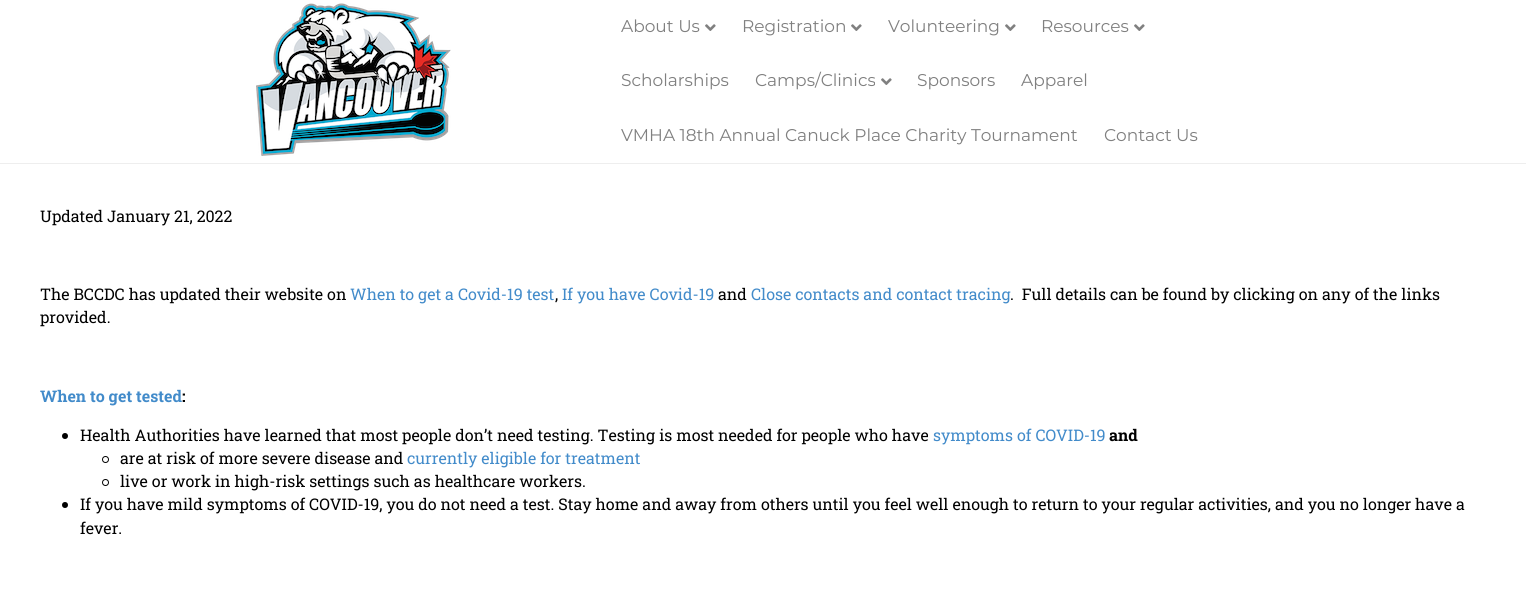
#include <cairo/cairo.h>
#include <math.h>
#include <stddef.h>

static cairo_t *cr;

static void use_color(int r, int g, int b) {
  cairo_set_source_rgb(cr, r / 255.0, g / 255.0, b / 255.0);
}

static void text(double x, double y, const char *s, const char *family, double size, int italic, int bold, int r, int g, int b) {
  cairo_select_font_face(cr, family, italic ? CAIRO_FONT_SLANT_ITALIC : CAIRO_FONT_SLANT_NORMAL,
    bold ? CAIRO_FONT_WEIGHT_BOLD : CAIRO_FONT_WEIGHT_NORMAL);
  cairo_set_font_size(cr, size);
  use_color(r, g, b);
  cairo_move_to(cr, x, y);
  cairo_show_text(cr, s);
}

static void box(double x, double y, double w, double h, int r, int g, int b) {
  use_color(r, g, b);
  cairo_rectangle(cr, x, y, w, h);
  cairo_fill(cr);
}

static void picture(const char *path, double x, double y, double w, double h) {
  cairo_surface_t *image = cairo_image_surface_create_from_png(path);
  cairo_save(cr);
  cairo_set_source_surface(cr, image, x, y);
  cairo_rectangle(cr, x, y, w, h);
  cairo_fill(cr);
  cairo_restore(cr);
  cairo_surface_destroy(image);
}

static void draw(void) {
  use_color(255, 255, 255);
  cairo_paint(cr);
  box(0, 163, 1526, 1, 238, 238, 238);
  picture("img_01.png", 256, 3, 195, 153);
  picture("img_02.png", 705, 24, 11, 7);
  picture("img_02.png", 851, 24, 11, 7);
  picture("img_02.png", 1005, 24, 11, 7);
  picture("img_02.png", 1134, 24, 11, 7);
  picture("img_02.png", 881, 78, 11, 7);
  use_color(0, 0, 0);
  cairo_arc(cr, 65, 436, 3, 0, 2 * M_PI);
  cairo_fill(cr);
  cairo_arc(cr, 105.5, 459.5, 3, 0, 2 * M_PI);
  cairo_set_line_width(cr, 1);
  cairo_stroke(cr);
  cairo_arc(cr, 105.5, 482.5, 3, 0, 2 * M_PI);
  cairo_stroke(cr);
  cairo_arc(cr, 65, 505, 3, 0, 2 * M_PI);
  cairo_fill(cr);
  text(621, 32, "About Us", "Montserrat Thin", 17, 0, 0, 128, 128, 128);
  text(742, 32, "Registration", "Montserrat Thin", 17, 0, 0, 128, 128, 128);
  text(888, 32, "Volunteering", "Montserrat Thin", 17, 0, 0, 128, 128, 128);
  text(1041, 32, "Resources", "Montserrat Thin", 17, 0, 0, 128, 128, 128);
  text(621, 86, "Scholarships", "Montserrat Thin", 17, 0, 0, 128, 128, 128);
  text(755, 86, "Camps/Clinics", "Montserrat Thin", 17, 0, 0, 128, 128, 128);
  text(917, 86, "Sponsors", "Montserrat Thin", 17, 0, 0, 128, 128, 128);
  text(1021, 86, "Apparel", "Montserrat Thin", 17, 0, 0, 128, 128, 128);
  text(621, 141, "VMHA 18th Annual Canuck Place Charity Tournament", "Montserrat Thin", 17, 0, 0, 128, 128, 128);
  text(1104, 141, "Contact Us", "Montserrat Thin", 17, 0, 0, 128, 128, 128);
  text(40, 222, "Updated January 21, 2022", "Roboto Slab", 16, 0, 0, 0, 0, 0);
  text(40, 300, "The BCCDC has updated their website on", "Roboto Slab", 16, 0, 0, 0, 0, 0);
  text(350, 300, "When to get a Covid-19 test", "Roboto Slab", 16, 0, 0, 66, 139, 202);
  text(555, 300, ",", "Roboto Slab", 16, 0, 0, 0, 0, 0);
  text(562, 300, "If you have Covid-19", "Roboto Slab", 16, 0, 0, 66, 139, 202);
  text(718, 300, "and", "Roboto Slab", 16, 0, 0, 0, 0, 0);
  text(751, 300, "Close contacts and contact tracing", "Roboto Slab", 16, 0, 0, 66, 139, 202);
  text(1010, 300, ".  Full details can be found by clicking on any of the links", "Roboto Slab", 16, 0, 0, 0, 0, 0);
  text(40, 323, "provided.", "Roboto Slab", 16, 0, 0, 0, 0, 0);
  text(40, 402, "When to get tested", "Roboto Slab", 16, 0, 1, 66, 139, 202);
  text(182, 402, ":", "Roboto Slab", 16, 0, 1, 0, 0, 0);
  text(80, 441, "Health Authorities have learned that most people don’t need testing. Testing is most needed for people who have", "Roboto Slab", 16, 0, 0, 0, 0, 0);
  text(933, 441, "symptoms of COVID-19", "Roboto Slab", 16, 0, 0, 66, 139, 202);
  text(1109, 441, "and", "Roboto Slab", 16, 0, 1, 0, 0, 0);
  text(120, 464, "are at risk of more severe disease and", "Roboto Slab", 16, 0, 0, 0, 0, 0);
  text(407, 464, "currently eligible for treatment", "Roboto Slab", 16, 0, 0, 66, 139, 202);
  text(120, 487, "live or work in high-risk settings such as healthcare workers.", "Roboto Slab", 16, 0, 0, 0, 0, 0);
  text(80, 510, "If you have mild symptoms of COVID-19, you do not need a test. Stay home and away from others until you feel well enough to return to your regular activities, and you no longer have a", "Roboto Slab", 16, 0, 0, 0, 0, 0);
  text(80, 534, "fever.", "Roboto Slab", 16, 0, 0, 0, 0, 0);
}

int main(void) {
  cairo_surface_t *surface = cairo_image_surface_create(CAIRO_FORMAT_RGB24, 1526, 604);
  cr = cairo_create(surface);
  cairo_font_options_t *options = cairo_font_options_create();
  cairo_font_options_set_hint_metrics(options, CAIRO_HINT_METRICS_OFF);
  cairo_font_options_set_hint_style(options, CAIRO_HINT_STYLE_NONE);
  cairo_set_font_options(cr, options);
  cairo_set_miter_limit(cr, 4);
  draw();
  cairo_surface_write_to_png(surface, "out.png");
  cairo_font_options_destroy(options);
  cairo_destroy(cr);
  cairo_surface_destroy(surface);
  return 0;
}
